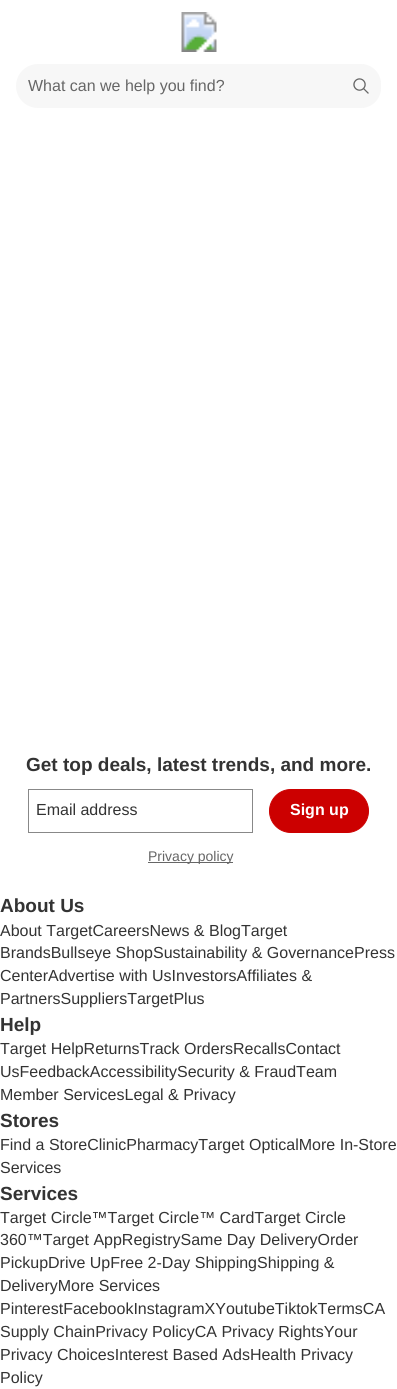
#include <cairo/cairo.h>
#include <math.h>
#include <stddef.h>

static cairo_t *cr;

static void use_color(int r, int g, int b) {
  cairo_set_source_rgb(cr, r / 255.0, g / 255.0, b / 255.0);
}

static void text(double x, double y, const char *s, const char *family, double size, int italic, int bold, int r, int g, int b) {
  cairo_select_font_face(cr, family, italic ? CAIRO_FONT_SLANT_ITALIC : CAIRO_FONT_SLANT_NORMAL,
    bold ? CAIRO_FONT_WEIGHT_BOLD : CAIRO_FONT_WEIGHT_NORMAL);
  cairo_set_font_size(cr, size);
  use_color(r, g, b);
  cairo_move_to(cr, x, y);
  cairo_show_text(cr, s);
}

static void box(double x, double y, double w, double h, int r, int g, int b) {
  use_color(r, g, b);
  cairo_rectangle(cr, x, y, w, h);
  cairo_fill(cr);
}

static void round_rect(double x, double y, double w, double h, double r) {
  cairo_new_sub_path(cr);
  cairo_arc(cr, x + w - r, y + h - r, r, 0, M_PI / 2);
  cairo_arc(cr, x + r, y + h - r, r, M_PI / 2, M_PI);
  cairo_arc(cr, x + r, y + r, r, M_PI, 1.5 * M_PI);
  cairo_arc(cr, x + w - r, y + r, r, 1.5 * M_PI, 2 * M_PI);
  cairo_close_path(cr);
}

static void picture(const char *path, double x, double y, double w, double h) {
  cairo_surface_t *image = cairo_image_surface_create_from_png(path);
  cairo_save(cr);
  cairo_set_source_surface(cr, image, x, y);
  cairo_rectangle(cr, x, y, w, h);
  cairo_fill(cr);
  cairo_restore(cr);
  cairo_surface_destroy(image);
}

static void draw(void) {
  use_color(255, 255, 255);
  cairo_paint(cr);
  picture("img_01.png", 181, 12, 36, 40);
  use_color(247, 247, 247);
  round_rect(16, 64, 365, 44, 22);
  cairo_fill(cr);
  round_rect(341, 64, 40, 44, 20);
  cairo_fill(cr);
  picture("img_02.png", 353, 78, 16, 16);
  cairo_rectangle(cr, 28.5, 789.5, 224, 43);
  use_color(136, 136, 136);
  cairo_set_line_width(cr, 1);
  cairo_stroke(cr);
  use_color(204, 0, 0);
  round_rect(269.5, 789.5, 99, 43, 21.5);
  cairo_fill_preserve(cr);
  cairo_stroke(cr);
  box(148, 862, 85, 1, 102, 102, 102);
  text(28, 91, "What can we help you find?", "Liberation Sans", 16, 0, 0, 102, 102, 102);
  text(26, 771, "Get top deals, latest trends, and more.", "Liberation Sans", 19, 0, 1, 51, 51, 51);
  text(36, 815, "Email address", "Liberation Sans", 16, 0, 0, 51, 51, 51);
  text(290, 815, "Sign up", "Liberation Sans", 16, 0, 1, 255, 255, 255);
  text(148, 861, "Privacy policy", "Liberation Sans", 14, 0, 0, 102, 102, 102);
  text(0, 912, "About Us", "Liberation Sans", 19, 0, 1, 51, 51, 51);
  text(0, 936, "About TargetCareersNews & BlogTarget", "Liberation Sans", 16, 0, 0, 51, 51, 51);
  text(0, 958, "BrandsBullseye ShopSustainability & GovernancePress", "Liberation Sans", 16, 0, 0, 51, 51, 51);
  text(0, 981, "CenterAdvertise with UsInvestorsAffiliates &", "Liberation Sans", 16, 0, 0, 51, 51, 51);
  text(0, 1004, "PartnersSuppliersTargetPlus", "Liberation Sans", 16, 0, 0, 51, 51, 51);
  text(0, 1031, "Help", "Liberation Sans", 19, 0, 1, 51, 51, 51);
  text(0, 1054, "Target HelpReturnsTrack OrdersRecallsContact", "Liberation Sans", 16, 0, 0, 51, 51, 51);
  text(0, 1077, "UsFeedbackAccessibilitySecurity & FraudTeam", "Liberation Sans", 16, 0, 0, 51, 51, 51);
  text(0, 1100, "Member ServicesLegal & Privacy", "Liberation Sans", 16, 0, 0, 51, 51, 51);
  text(0, 1127, "Stores", "Liberation Sans", 19, 0, 1, 51, 51, 51);
  text(0, 1150, "Find a StoreClinicPharmacyTarget OpticalMore In-Store", "Liberation Sans", 16, 0, 0, 51, 51, 51);
  text(0, 1173, "Services", "Liberation Sans", 16, 0, 0, 51, 51, 51);
  text(0, 1200, "Services", "Liberation Sans", 19, 0, 1, 51, 51, 51);
  text(0, 1223, "Target Circle™Target Circle™ CardTarget Circle", "Liberation Sans", 16, 0, 0, 51, 51, 51);
  text(0, 1245, "360™Target AppRegistrySame Day DeliveryOrder", "Liberation Sans", 16, 0, 0, 51, 51, 51);
  text(0, 1268, "PickupDrive UpFree 2-Day ShippingShipping &", "Liberation Sans", 16, 0, 0, 51, 51, 51);
  text(0, 1291, "DeliveryMore Services", "Liberation Sans", 16, 0, 0, 51, 51, 51);
  text(0, 1314, "PinterestFacebookInstagramXYoutubeTiktokTermsCA", "Liberation Sans", 16, 0, 0, 51, 51, 51);
  text(0, 1337, "Supply ChainPrivacy PolicyCA Privacy RightsYour", "Liberation Sans", 16, 0, 0, 51, 51, 51);
  text(0, 1360, "Privacy ChoicesInterest Based AdsHealth Privacy", "Liberation Sans", 16, 0, 0, 51, 51, 51);
  text(0, 1383, "Policy", "Liberation Sans", 16, 0, 0, 51, 51, 51);
}

int main(void) {
  cairo_surface_t *surface = cairo_image_surface_create(CAIRO_FORMAT_RGB24, 397, 1389);
  cr = cairo_create(surface);
  cairo_font_options_t *options = cairo_font_options_create();
  cairo_font_options_set_hint_metrics(options, CAIRO_HINT_METRICS_OFF);
  cairo_font_options_set_hint_style(options, CAIRO_HINT_STYLE_NONE);
  cairo_set_font_options(cr, options);
  cairo_set_miter_limit(cr, 4);
  draw();
  cairo_surface_write_to_png(surface, "out.png");
  cairo_font_options_destroy(options);
  cairo_destroy(cr);
  cairo_surface_destroy(surface);
  return 0;
}
